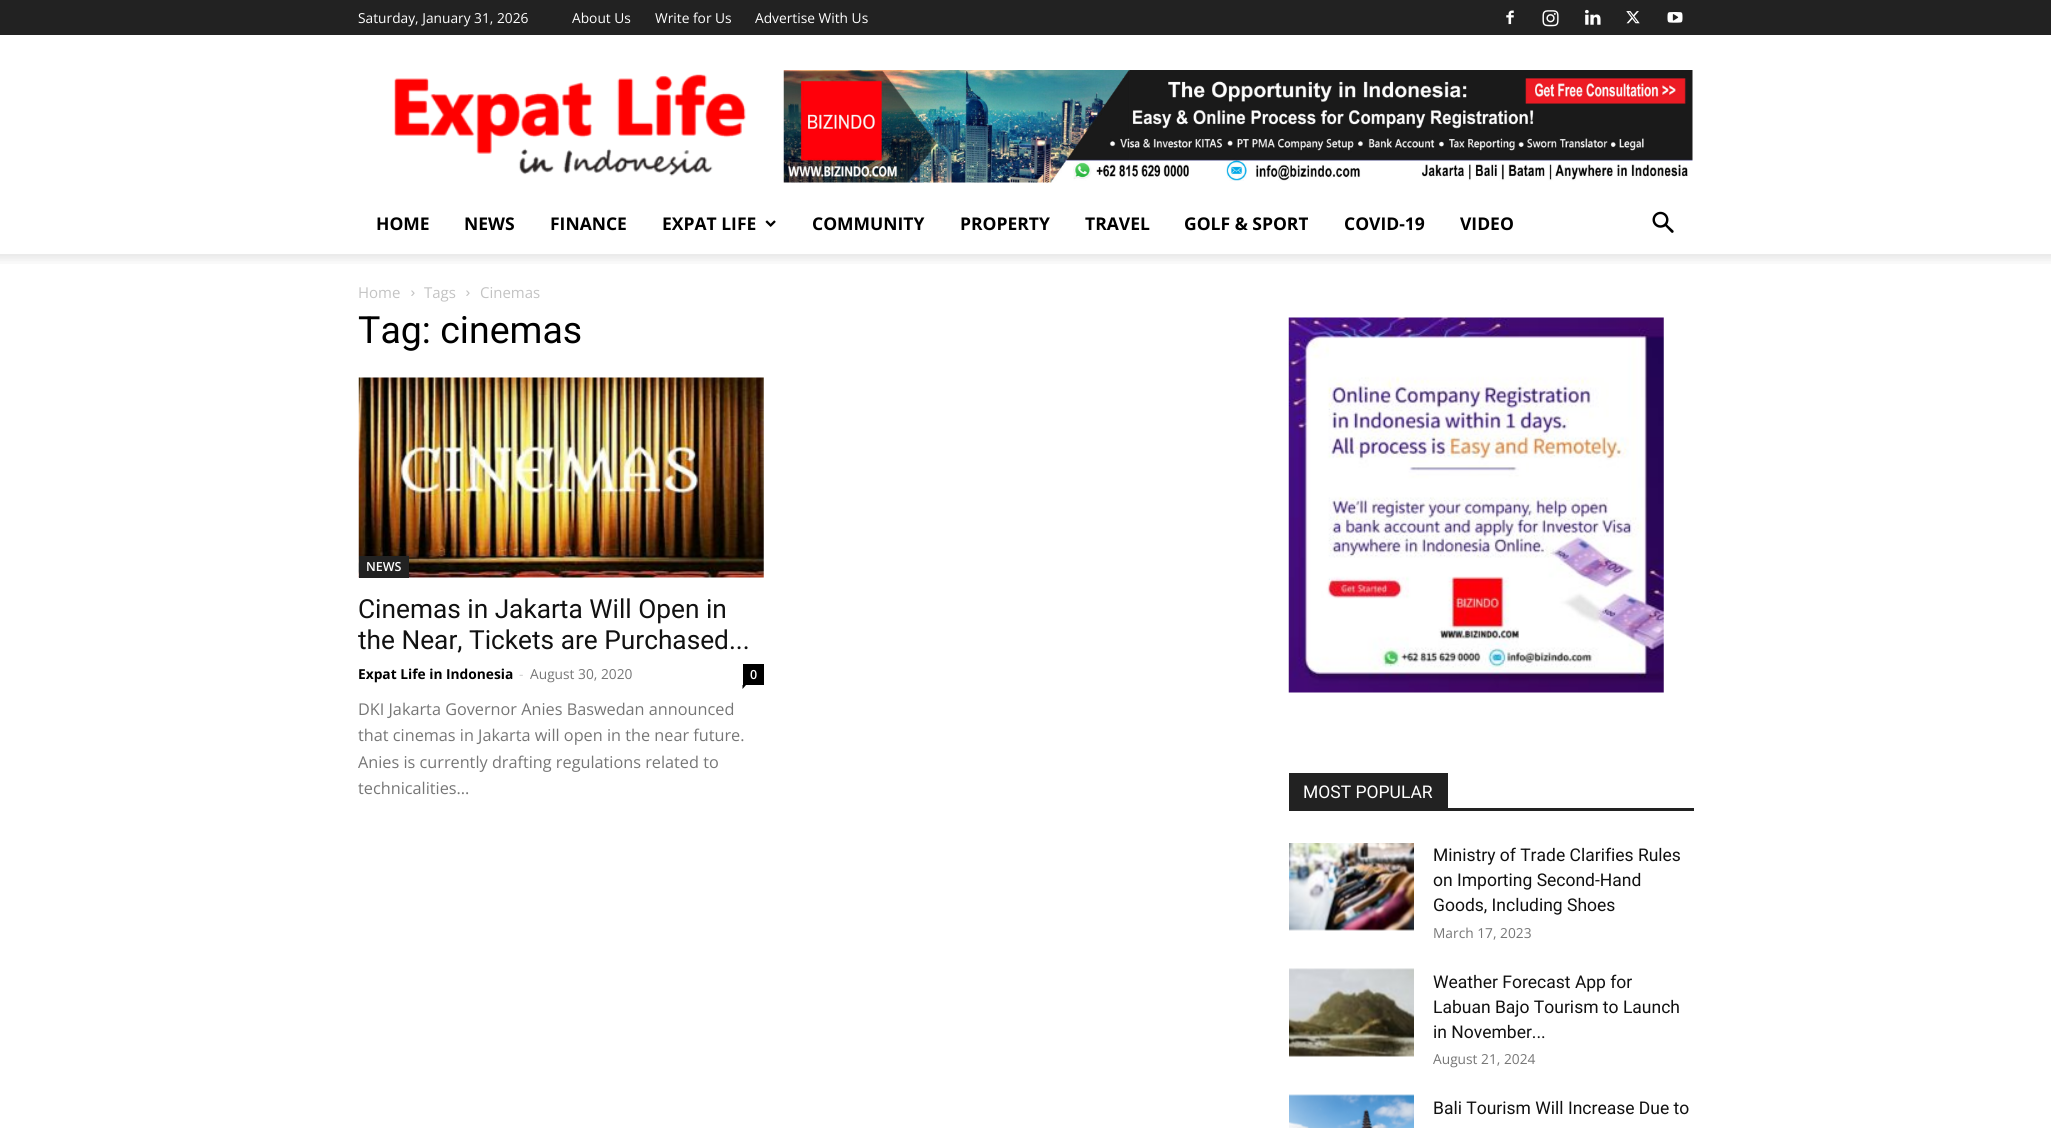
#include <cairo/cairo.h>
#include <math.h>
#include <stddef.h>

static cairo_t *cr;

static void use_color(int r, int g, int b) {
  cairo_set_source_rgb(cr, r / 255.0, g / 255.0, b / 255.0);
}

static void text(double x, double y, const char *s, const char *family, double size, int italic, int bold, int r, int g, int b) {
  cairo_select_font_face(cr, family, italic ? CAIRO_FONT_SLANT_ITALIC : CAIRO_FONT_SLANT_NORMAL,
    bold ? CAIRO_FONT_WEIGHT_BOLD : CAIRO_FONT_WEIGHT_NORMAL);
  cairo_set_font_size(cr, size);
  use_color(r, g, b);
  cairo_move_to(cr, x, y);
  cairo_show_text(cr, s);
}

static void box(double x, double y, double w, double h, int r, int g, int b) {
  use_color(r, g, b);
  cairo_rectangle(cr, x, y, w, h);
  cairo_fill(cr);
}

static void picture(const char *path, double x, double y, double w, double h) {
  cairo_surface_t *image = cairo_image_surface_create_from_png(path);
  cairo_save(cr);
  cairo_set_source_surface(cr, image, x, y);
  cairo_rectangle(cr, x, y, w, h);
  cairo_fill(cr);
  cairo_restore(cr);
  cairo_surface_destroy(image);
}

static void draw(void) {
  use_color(255, 255, 255);
  cairo_paint(cr);
  box(0, 0, 2051, 35, 34, 34, 34);
  picture("img_01.png", 1506, 10, 8, 15);
  picture("img_02.png", 1542, 10, 17, 17);
  picture("img_03.png", 1585, 9, 16, 16);
  picture("img_04.png", 1626, 11, 14, 13);
  picture("img_05.png", 1667, 12, 16, 11);
  picture("img_06.png", 394, 74, 352, 102);
  picture("img_07.png", 783, 70, 910, 113);
  picture("img_08.png", 765, 220, 11, 7);
  picture("img_09.png", 1652, 211, 22, 22);
  picture("img_10.png", 0, 254, 2051, 10);
  picture("img_11.png", 411, 290, 4, 6);
  picture("img_11.png", 466, 290, 4, 6);
  picture("img_12.png", 358, 377, 406, 201);
  box(359, 556, 50, 22, 34, 34, 34);
  box(743, 664, 21, 21, 0, 0, 0);
  cairo_new_path(cr);
  cairo_move_to(cr, 742.5, 685);
  cairo_line_to(cr, 746, 685);
  cairo_line_to(cr, 742.5, 689);
  cairo_close_path(cr);
  cairo_fill(cr);
  picture("img_13.png", 1288, 317, 376, 376);
  box(1289, 808, 405, 3, 34, 34, 34);
  box(1289, 773, 159, 35, 34, 34, 34);
  picture("img_14.png", 1289, 843, 125, 88);
  picture("img_15.png", 1289, 968, 125, 89);
  picture("img_16.png", 1289, 1094, 125, 34);
  text(358, 23, "Saturday, January 31, 2026", "Open Sans", 13.75, 0, 0, 255, 255, 255);
  text(572, 23, "About Us", "Open Sans", 13.75, 0, 0, 255, 255, 255);
  text(655, 23, "Write for Us", "Open Sans", 13.75, 0, 0, 255, 255, 255);
  text(755, 23, "Advertise With Us", "Open Sans", 13.75, 0, 0, 255, 255, 255);
  text(376, 230, "HOME", "Open Sans", 17.5, 0, 1, 0, 0, 0);
  text(464, 230, "NEWS", "Open Sans", 17.5, 0, 1, 0, 0, 0);
  text(550, 230, "FINANCE", "Open Sans", 17.5, 0, 1, 0, 0, 0);
  text(662, 230, "EXPAT LIFE", "Open Sans", 17.5, 0, 1, 0, 0, 0);
  text(812, 230, "COMMUNITY", "Open Sans", 17.5, 0, 1, 0, 0, 0);
  text(960, 230, "PROPERTY", "Open Sans", 17.5, 0, 1, 0, 0, 0);
  text(1085, 230, "TRAVEL", "Open Sans", 17.5, 0, 1, 0, 0, 0);
  text(1184, 230, "GOLF & SPORT", "Open Sans", 17.5, 0, 1, 0, 0, 0);
  text(1344, 230, "COVID-19", "Open Sans", 17.5, 0, 1, 0, 0, 0);
  text(1460, 230, "VIDEO", "Open Sans", 17.5, 0, 1, 0, 0, 0);
  text(358, 298, "Home", "Open Sans", 15, 0, 0, 195, 195, 195);
  text(424, 298, "Tags", "Open Sans", 15, 0, 0, 195, 195, 195);
  text(480, 298, "Cinemas", "Open Sans", 15, 0, 0, 195, 195, 195);
  text(358, 343, "Tag: cinemas", "Roboto", 37.5, 0, 0, 0, 0, 0);
  text(366, 571, "NEWS", "Open Sans SemiBold", 12.5, 0, 0, 255, 255, 255);
  text(358, 618, "Cinemas in Jakarta Will Open in", "Roboto", 26.25, 0, 0, 17, 17, 17);
  text(358, 649, "the Near, Tickets are Purchased...", "Roboto", 26.25, 0, 0, 17, 17, 17);
  text(358, 679, "Expat Life in Indonesia", "Open Sans", 13.75, 0, 1, 0, 0, 0);
  text(519, 679, "-", "Open Sans", 13.75, 0, 0, 204, 204, 204);
  text(530, 679, "August 30, 2020", "Open Sans", 13.75, 0, 0, 118, 118, 118);
  text(750, 679, "0", "Open Sans SemiBold", 12.5, 0, 0, 255, 255, 255);
  text(358, 715, "DKI Jakarta Governor Anies Baswedan announced", "Open Sans", 16.25, 0, 0, 118, 118, 118);
  text(358, 741, "that cinemas in Jakarta will open in the near future.", "Open Sans", 16.25, 0, 0, 118, 118, 118);
  text(358, 768, "Anies is currently drafting regulations related to", "Open Sans", 16.25, 0, 0, 118, 118, 118);
  text(358, 794, "technicalities...", "Open Sans", 16.25, 0, 0, 118, 118, 118);
  text(1303, 798, "MOST POPULAR", "Roboto", 17.5, 0, 0, 255, 255, 255);
  text(1433, 861, "Ministry of Trade Clarifies Rules", "Roboto", 17.5, 0, 0, 17, 17, 17);
  text(1433, 886, "on Importing Second-Hand", "Roboto", 17.5, 0, 0, 17, 17, 17);
  text(1433, 911, "Goods, Including Shoes", "Roboto", 17.5, 0, 0, 17, 17, 17);
  text(1433, 938, "March 17, 2023", "Open Sans", 13.75, 0, 0, 118, 118, 118);
  text(1433, 988, "Weather Forecast App for", "Roboto", 17.5, 0, 0, 17, 17, 17);
  text(1433, 1013, "Labuan Bajo Tourism to Launch", "Roboto", 17.5, 0, 0, 17, 17, 17);
  text(1433, 1038, "in November...", "Roboto", 17.5, 0, 0, 17, 17, 17);
  text(1433, 1064, "August 21, 2024", "Open Sans", 13.75, 0, 0, 118, 118, 118);
  text(1433, 1114, "Bali Tourism Will Increase Due to", "Roboto", 17.5, 0, 0, 17, 17, 17);
}

int main(void) {
  cairo_surface_t *surface = cairo_image_surface_create(CAIRO_FORMAT_RGB24, 2051, 1128);
  cr = cairo_create(surface);
  cairo_font_options_t *options = cairo_font_options_create();
  cairo_font_options_set_hint_metrics(options, CAIRO_HINT_METRICS_OFF);
  cairo_font_options_set_hint_style(options, CAIRO_HINT_STYLE_NONE);
  cairo_set_font_options(cr, options);
  cairo_set_miter_limit(cr, 4);
  draw();
  cairo_surface_write_to_png(surface, "out.png");
  cairo_font_options_destroy(options);
  cairo_destroy(cr);
  cairo_surface_destroy(surface);
  return 0;
}
